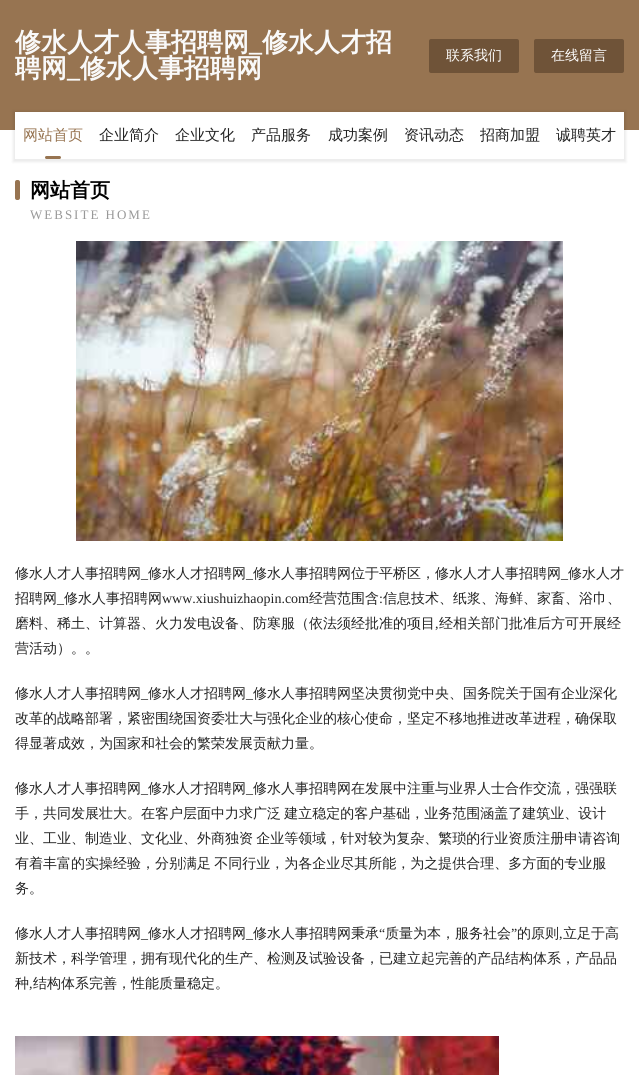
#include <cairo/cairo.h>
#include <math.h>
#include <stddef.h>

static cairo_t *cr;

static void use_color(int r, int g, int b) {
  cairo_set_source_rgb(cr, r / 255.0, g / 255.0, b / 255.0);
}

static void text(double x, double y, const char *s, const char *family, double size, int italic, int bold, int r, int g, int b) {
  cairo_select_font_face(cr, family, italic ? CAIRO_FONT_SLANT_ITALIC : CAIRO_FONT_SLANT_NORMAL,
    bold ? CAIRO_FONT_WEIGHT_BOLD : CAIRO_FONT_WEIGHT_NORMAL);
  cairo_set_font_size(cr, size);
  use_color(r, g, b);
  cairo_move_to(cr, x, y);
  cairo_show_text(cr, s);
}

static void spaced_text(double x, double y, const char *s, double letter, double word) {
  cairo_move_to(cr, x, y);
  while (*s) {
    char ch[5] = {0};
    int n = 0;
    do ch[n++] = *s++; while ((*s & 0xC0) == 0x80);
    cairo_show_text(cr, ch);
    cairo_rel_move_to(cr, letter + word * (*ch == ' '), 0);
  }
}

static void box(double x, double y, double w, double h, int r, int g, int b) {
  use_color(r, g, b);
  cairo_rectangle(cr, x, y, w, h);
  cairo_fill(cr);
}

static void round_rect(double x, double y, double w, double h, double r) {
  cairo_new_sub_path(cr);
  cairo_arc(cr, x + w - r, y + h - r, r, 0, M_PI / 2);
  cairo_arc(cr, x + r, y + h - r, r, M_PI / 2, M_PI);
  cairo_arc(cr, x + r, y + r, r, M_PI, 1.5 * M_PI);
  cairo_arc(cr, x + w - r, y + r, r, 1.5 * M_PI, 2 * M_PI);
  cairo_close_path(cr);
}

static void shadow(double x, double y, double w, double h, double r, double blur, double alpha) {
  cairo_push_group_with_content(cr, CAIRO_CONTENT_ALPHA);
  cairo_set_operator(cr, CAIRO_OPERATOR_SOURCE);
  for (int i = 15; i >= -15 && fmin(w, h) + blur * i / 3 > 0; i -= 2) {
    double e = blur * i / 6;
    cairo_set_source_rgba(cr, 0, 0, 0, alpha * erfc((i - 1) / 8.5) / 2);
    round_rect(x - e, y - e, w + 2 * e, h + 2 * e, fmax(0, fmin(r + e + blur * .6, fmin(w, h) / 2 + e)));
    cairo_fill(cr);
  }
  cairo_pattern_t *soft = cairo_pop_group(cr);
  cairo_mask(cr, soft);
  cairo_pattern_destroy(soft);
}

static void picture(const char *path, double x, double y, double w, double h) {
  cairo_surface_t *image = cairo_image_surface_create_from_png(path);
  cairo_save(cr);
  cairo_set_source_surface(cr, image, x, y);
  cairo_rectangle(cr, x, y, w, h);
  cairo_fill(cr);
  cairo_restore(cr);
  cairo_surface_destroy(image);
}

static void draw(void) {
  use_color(255, 255, 255);
  cairo_paint(cr);
  box(0, 0, 639, 130, 151, 116, 81);
  use_color(111, 83, 56);
  round_rect(429, 39, 90, 34, 2);
  cairo_fill(cr);
  round_rect(534, 39, 90, 34, 2);
  cairo_fill(cr);
  use_color(0, 0, 0);
  shadow(13, 111, 613, 51, 0, 1.5, 0.08);
  box(15, 112, 609, 47, 255, 255, 255);
  use_color(151, 116, 81);
  round_rect(45, 156, 16, 3, 1.5);
  cairo_fill(cr);
  round_rect(15, 180, 5, 20, 2);
  cairo_fill(cr);
  picture("img_01.png", 76, 241, 487, 300);
  picture("img_02.png", 15, 1036, 484, 39);
  text(15, 51, "修水人才人事招聘网", "WenQuanYi Zen Hei", 26, 0, 1, 249, 249, 249);
  text(249, 51, "_", "Liberation Serif", 26, 0, 1, 249, 249, 249);
  text(262, 51, "修水人才招", "WenQuanYi Zen Hei", 26, 0, 1, 249, 249, 249);
  text(15, 77, "聘网", "WenQuanYi Zen Hei", 26, 0, 1, 249, 249, 249);
  text(67, 77, "_", "Liberation Serif", 26, 0, 1, 249, 249, 249);
  text(80, 77, "修水人事招聘网", "WenQuanYi Zen Hei", 26, 0, 1, 249, 249, 249);
  text(446, 60, "联系我们", "WenQuanYi Zen Hei Medium", 14, 0, 0, 255, 255, 255);
  text(551, 60, "在线留言", "WenQuanYi Zen Hei Medium", 14, 0, 0, 255, 255, 255);
  text(23, 140, "网站首页", "WenQuanYi Zen Hei Medium", 15, 0, 0, 151, 116, 81);
  text(99, 140, "企业简介", "WenQuanYi Zen Hei Medium", 15, 0, 0, 35, 35, 35);
  text(175, 140, "企业文化", "WenQuanYi Zen Hei Medium", 15, 0, 0, 35, 35, 35);
  text(251, 140, "产品服务", "WenQuanYi Zen Hei Medium", 15, 0, 0, 35, 35, 35);
  text(328, 140, "成功案例", "WenQuanYi Zen Hei Medium", 15, 0, 0, 35, 35, 35);
  text(404, 140, "资讯动态", "WenQuanYi Zen Hei Medium", 15, 0, 0, 35, 35, 35);
  text(480, 140, "招商加盟", "WenQuanYi Zen Hei Medium", 15, 0, 0, 35, 35, 35);
  text(556, 140, "诚聘英才", "WenQuanYi Zen Hei Medium", 15, 0, 0, 35, 35, 35);
  text(30, 197, "网站首页", "WenQuanYi Zen Hei", 20, 0, 1, 0, 0, 0);
  cairo_select_font_face(cr, "Liberation Serif", CAIRO_FONT_SLANT_NORMAL, CAIRO_FONT_WEIGHT_NORMAL);
  cairo_set_font_size(cr, 13);
  use_color(152, 152, 152);
  spaced_text(30, 219, "WEBSITE HOME", 2, 0);
  text(15, 578, "修水人才人事招聘网", "WenQuanYi Zen Hei Medium", 14, 0, 0, 35, 35, 35);
  text(141, 578, "_", "Liberation Serif", 14, 0, 0, 35, 35, 35);
  text(148, 578, "修水人才招聘网", "WenQuanYi Zen Hei Medium", 14, 0, 0, 35, 35, 35);
  text(246, 578, "_", "Liberation Serif", 14, 0, 0, 35, 35, 35);
  text(253, 578, "修水人事招聘网位于平桥区，修水人才人事招聘网", "WenQuanYi Zen Hei Medium", 14, 0, 0, 35, 35, 35);
  text(561, 578, "_", "Liberation Serif", 14, 0, 0, 35, 35, 35);
  text(568, 578, "修水人才", "WenQuanYi Zen Hei Medium", 14, 0, 0, 35, 35, 35);
  text(15, 603, "招聘网", "WenQuanYi Zen Hei Medium", 14, 0, 0, 35, 35, 35);
  text(162, 603, "www.xiushuizhaopin.com", "Liberation Serif", 14, 0, 0, 35, 35, 35);
  text(309, 603, "经营范围含", "WenQuanYi Zen Hei Medium", 14, 0, 0, 35, 35, 35);
  text(379, 603, ":", "Liberation Serif", 14, 0, 0, 35, 35, 35);
  text(383, 603, "信息技术、纸浆、海鲜、家畜、浴巾、", "WenQuanYi Zen Hei Medium", 14, 0, 0, 35, 35, 35);
  text(57, 603, "_", "Liberation Serif", 14, 0, 0, 35, 35, 35);
  text(64, 603, "修水人事招聘网", "WenQuanYi Zen Hei Medium", 14, 0, 0, 35, 35, 35);
  text(15, 628, "磨料、稀土、计算器、火力发电设备、防寒服（依法须经批准的项目", "WenQuanYi Zen Hei Medium", 14, 0, 0, 35, 35, 35);
  text(435, 628, ",", "Liberation Serif", 14, 0, 0, 35, 35, 35);
  text(439, 628, "经相关部门批准后方可开展经", "WenQuanYi Zen Hei Medium", 14, 0, 0, 35, 35, 35);
  text(15, 653, "营活动）。。", "WenQuanYi Zen Hei Medium", 14, 0, 0, 35, 35, 35);
  text(15, 698, "修水人才人事招聘网", "WenQuanYi Zen Hei Medium", 14, 0, 0, 35, 35, 35);
  text(141, 698, "_", "Liberation Serif", 14, 0, 0, 35, 35, 35);
  text(148, 698, "修水人才招聘网", "WenQuanYi Zen Hei Medium", 14, 0, 0, 35, 35, 35);
  text(246, 698, "_", "Liberation Serif", 14, 0, 0, 35, 35, 35);
  text(253, 698, "修水人事招聘网坚决贯彻党中央、国务院关于国有企业深化", "WenQuanYi Zen Hei Medium", 14, 0, 0, 35, 35, 35);
  text(15, 723, "改革的战略部署，紧密围绕国资委壮大与强化企业的核心使命，坚定不移地推进改革进程，确保取", "WenQuanYi Zen Hei Medium", 14, 0, 0, 35, 35, 35);
  text(15, 748, "得显著成效，为国家和社会的繁荣发展贡献力量。", "WenQuanYi Zen Hei Medium", 14, 0, 0, 35, 35, 35);
  text(15, 793, "修水人才人事招聘网", "WenQuanYi Zen Hei Medium", 14, 0, 0, 35, 35, 35);
  text(141, 793, "_", "Liberation Serif", 14, 0, 0, 35, 35, 35);
  text(148, 793, "修水人才招聘网", "WenQuanYi Zen Hei Medium", 14, 0, 0, 35, 35, 35);
  text(246, 793, "_", "Liberation Serif", 14, 0, 0, 35, 35, 35);
  text(253, 793, "修水人事招聘网在发展中注重与业界人士合作交流，强强联", "WenQuanYi Zen Hei Medium", 14, 0, 0, 35, 35, 35);
  spaced_text(15, 818, "手，共同发展壮大。在客户层面中力求广泛 建立稳定的客户基础，业务范围涵盖了建筑业、设计", 0, -1);
  spaced_text(15, 843, "业、工业、制造业、文化业、外商独资 企业等领域，针对较为复杂、繁琐的行业资质注册申请咨询", 0, -1);
  spaced_text(15, 868, "有着丰富的实操经验，分别满足 不同行业，为各企业尽其所能，为之提供合理、多方面的专业服", 0, -1);
  text(15, 893, "务。", "WenQuanYi Zen Hei Medium", 14, 0, 0, 35, 35, 35);
  text(15, 938, "修水人才人事招聘网", "WenQuanYi Zen Hei Medium", 14, 0, 0, 35, 35, 35);
  text(379, 938, "“", "Liberation Serif", 14, 0, 0, 35, 35, 35);
  text(385, 938, "质量为本，服务社会", "WenQuanYi Zen Hei Medium", 14, 0, 0, 35, 35, 35);
  text(511, 938, "”", "Liberation Serif", 14, 0, 0, 35, 35, 35);
  text(517, 938, "的原则", "WenQuanYi Zen Hei Medium", 14, 0, 0, 35, 35, 35);
  text(563, 938, "立足于高", "WenQuanYi Zen Hei Medium", 14, 0, 0, 35, 35, 35);
  text(141, 938, "_", "Liberation Serif", 14, 0, 0, 35, 35, 35);
  text(148, 938, "修水人才招聘网", "WenQuanYi Zen Hei Medium", 14, 0, 0, 35, 35, 35);
  text(246, 938, "_", "Liberation Serif", 14, 0, 0, 35, 35, 35);
  text(253, 938, "修水人事招聘网秉承", "WenQuanYi Zen Hei Medium", 14, 0, 0, 35, 35, 35);
  text(559, 938, ",", "Liberation Serif", 14, 0, 0, 35, 35, 35);
  text(15, 963, "新技术，科学管理，拥有现代化的生产、检测及试验设备，已建立起完善的产品结构体系，产品品", "WenQuanYi Zen Hei Medium", 14, 0, 0, 35, 35, 35);
  text(15, 988, "种", "WenQuanYi Zen Hei Medium", 14, 0, 0, 35, 35, 35);
  text(29, 988, ",", "Liberation Serif", 14, 0, 0, 35, 35, 35);
  text(33, 988, "结构体系完善，性能质量稳定。", "WenQuanYi Zen Hei Medium", 14, 0, 0, 35, 35, 35);
}

int main(void) {
  cairo_surface_t *surface = cairo_image_surface_create(CAIRO_FORMAT_RGB24, 639, 1075);
  cr = cairo_create(surface);
  cairo_font_options_t *options = cairo_font_options_create();
  cairo_font_options_set_hint_metrics(options, CAIRO_HINT_METRICS_OFF);
  cairo_font_options_set_hint_style(options, CAIRO_HINT_STYLE_NONE);
  cairo_set_font_options(cr, options);
  cairo_set_miter_limit(cr, 4);
  draw();
  cairo_surface_write_to_png(surface, "out.png");
  cairo_font_options_destroy(options);
  cairo_destroy(cr);
  cairo_surface_destroy(surface);
  return 0;
}
